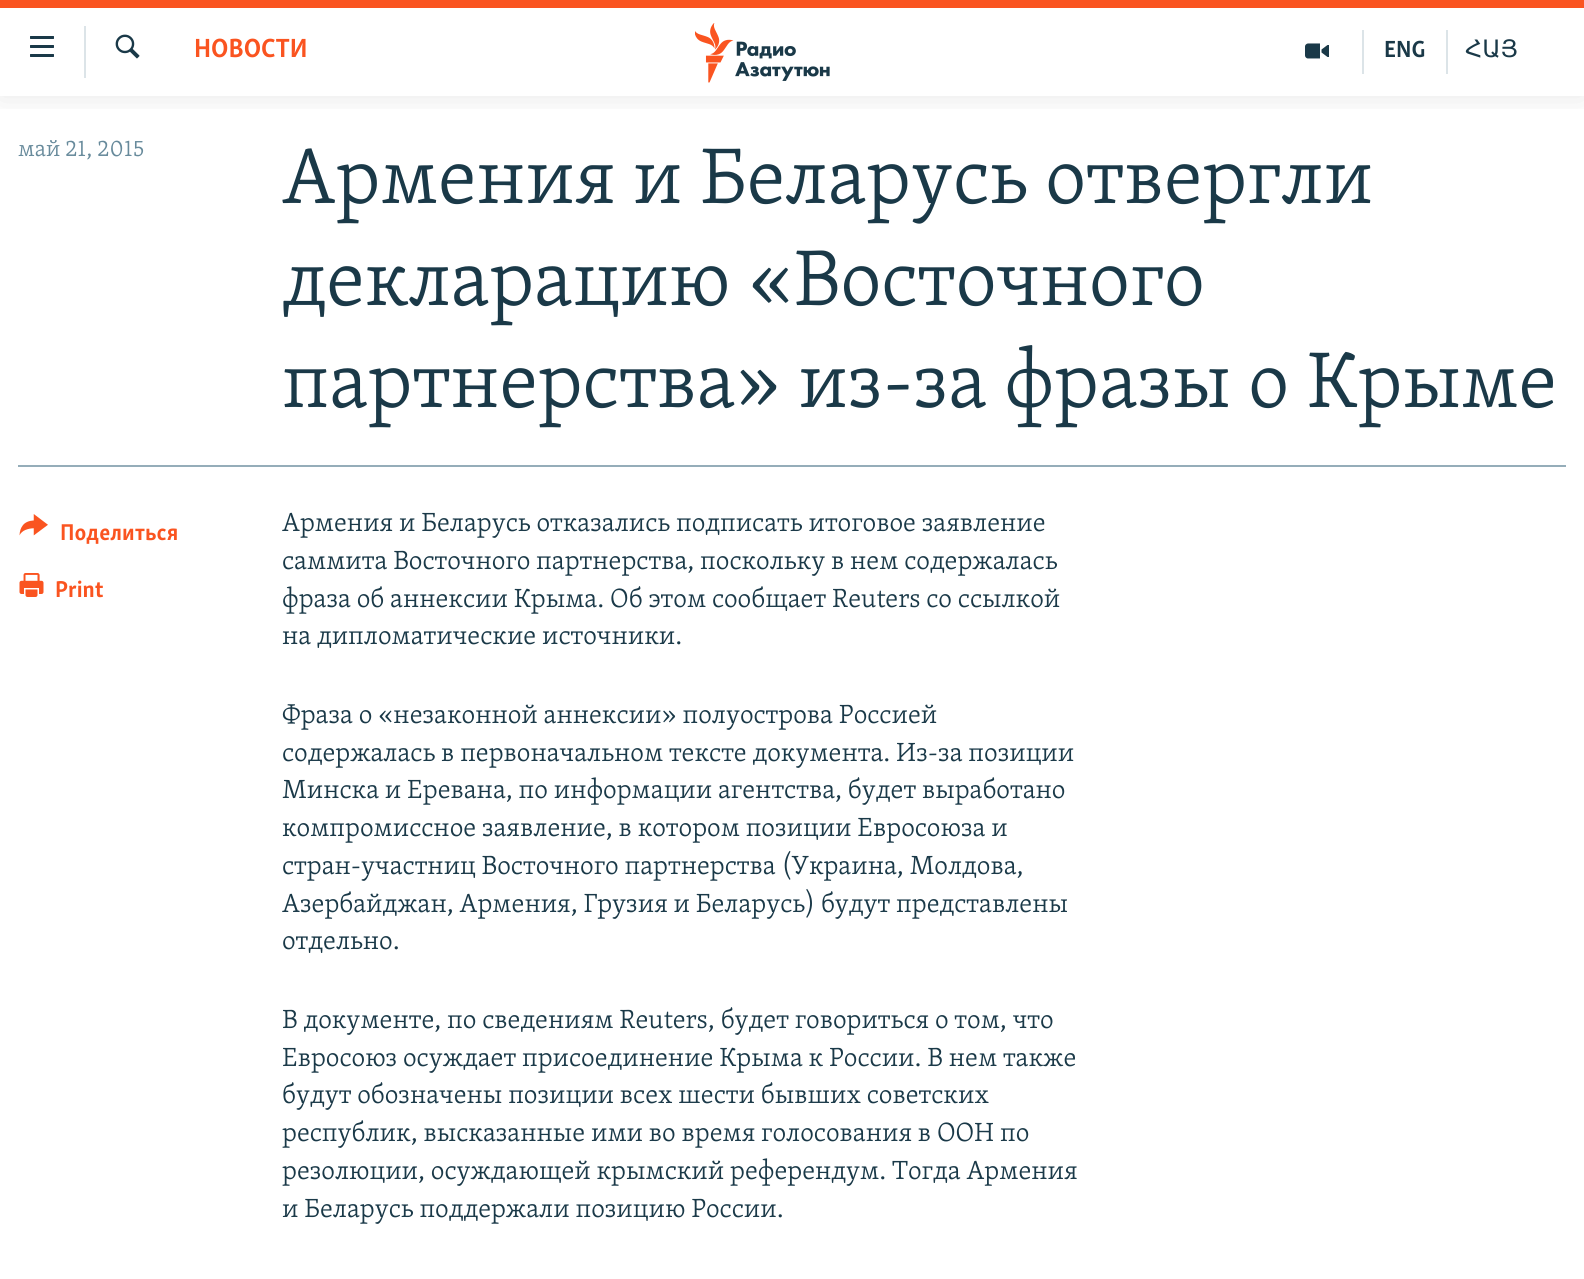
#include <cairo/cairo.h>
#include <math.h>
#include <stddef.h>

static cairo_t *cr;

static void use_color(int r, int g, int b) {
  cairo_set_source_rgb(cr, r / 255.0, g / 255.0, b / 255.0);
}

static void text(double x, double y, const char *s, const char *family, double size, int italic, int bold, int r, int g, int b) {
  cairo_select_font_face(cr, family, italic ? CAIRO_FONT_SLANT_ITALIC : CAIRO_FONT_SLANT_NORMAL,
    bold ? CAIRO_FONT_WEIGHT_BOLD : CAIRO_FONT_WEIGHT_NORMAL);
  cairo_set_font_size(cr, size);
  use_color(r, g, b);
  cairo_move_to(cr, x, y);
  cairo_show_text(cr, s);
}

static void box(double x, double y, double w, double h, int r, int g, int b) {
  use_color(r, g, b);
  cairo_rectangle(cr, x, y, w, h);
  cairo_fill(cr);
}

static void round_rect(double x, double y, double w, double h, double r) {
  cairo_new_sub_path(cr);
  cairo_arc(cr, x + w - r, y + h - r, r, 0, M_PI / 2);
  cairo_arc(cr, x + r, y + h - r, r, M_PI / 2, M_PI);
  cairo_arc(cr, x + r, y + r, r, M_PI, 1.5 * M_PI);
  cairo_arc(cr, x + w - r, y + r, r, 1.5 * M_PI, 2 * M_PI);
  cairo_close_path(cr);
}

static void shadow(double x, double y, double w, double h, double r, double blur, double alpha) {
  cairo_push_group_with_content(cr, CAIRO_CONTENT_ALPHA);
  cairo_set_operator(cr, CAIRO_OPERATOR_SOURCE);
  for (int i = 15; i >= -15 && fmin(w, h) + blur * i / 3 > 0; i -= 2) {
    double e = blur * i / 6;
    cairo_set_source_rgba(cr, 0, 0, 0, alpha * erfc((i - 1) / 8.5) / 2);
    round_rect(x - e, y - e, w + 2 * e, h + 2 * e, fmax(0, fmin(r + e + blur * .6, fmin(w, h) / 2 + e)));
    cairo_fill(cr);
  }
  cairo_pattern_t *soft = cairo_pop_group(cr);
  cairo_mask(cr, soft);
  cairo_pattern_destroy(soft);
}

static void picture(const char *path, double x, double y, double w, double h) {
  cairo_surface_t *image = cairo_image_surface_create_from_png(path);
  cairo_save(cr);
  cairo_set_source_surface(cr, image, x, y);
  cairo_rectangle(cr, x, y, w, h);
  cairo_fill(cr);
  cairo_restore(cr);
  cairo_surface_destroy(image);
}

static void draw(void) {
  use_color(255, 255, 255);
  cairo_paint(cr);
  cairo_save(cr);
  cairo_rectangle(cr, 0, 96, 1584, 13);
  cairo_clip(cr);
  use_color(0, 0, 0);
  shadow(0, 0, 1584, 96, 0, 15, 0.1);
  cairo_restore(cr);
  box(0, 0, 1584, 8, 250, 84, 32);
  picture("img_01.png", 30, 36, 24, 21);
  box(84, 26, 2, 52, 220, 228, 232);
  picture("img_02.png", 115, 34, 25, 25);
  picture("img_03.png", 695, 23, 135, 60);
  box(1362, 30, 2, 44, 220, 228, 232);
  picture("img_04.png", 1305, 43, 24, 16);
  box(1446, 30, 2, 44, 220, 228, 232);
  box(18, 465, 1548, 2, 149, 173, 185);
  picture("img_05.png", 19, 514, 29, 22);
  picture("img_06.png", 19, 573, 25, 24);
  text(194, 57, "НОВОСТИ", "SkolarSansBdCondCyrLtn", 27, 0, 1, 250, 84, 32);
  text(1384, 57, "ENG", "SkolarSansBdCondCyrLtn", 24, 0, 1, 26, 57, 72);
  text(1465, 57, "ՀԱՅ", "DejaVu Sans", 24, 0, 0, 26, 57, 72);
  text(18, 156, "май 21, 2015", "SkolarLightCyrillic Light", 23.5, 0, 0, 103, 138, 155);
  text(282, 203, "Армения и Беларусь отвергли", "SkolarLightCyrillic Light", 81, 0, 0, 26, 57, 72);
  text(282, 305, "декларацию «Восточного", "SkolarLightCyrillic Light", 81, 0, 0, 26, 57, 72);
  text(282, 407, "партнерства» из-за фразы о Крыме", "SkolarLightCyrillic Light", 81, 0, 0, 26, 57, 72);
  text(60, 540, "Поделиться", "SkolarSansBdCondCyrLtn", 23.5, 0, 1, 250, 84, 32);
  text(55, 597, "Print", "SkolarSansBdCondCyrLtn", 23.5, 0, 1, 250, 84, 32);
  text(282, 531, "Армения и Беларусь отказались подписать итоговое заявление", "SkolarLightCyrillic Light", 27, 0, 0, 26, 57, 72);
  text(282, 569, "саммита Восточного партнерства, поскольку в нем содержалась", "SkolarLightCyrillic Light", 27, 0, 0, 26, 57, 72);
  text(282, 607, "фраза об аннексии Крыма. Об этом сообщает Reuters со ссылкой", "SkolarLightCyrillic Light", 27, 0, 0, 26, 57, 72);
  text(282, 644, "на дипломатические источники.", "SkolarLightCyrillic Light", 27, 0, 0, 26, 57, 72);
  text(282, 723, "Фраза о «незаконной аннексии» полуострова Россией", "SkolarLightCyrillic Light", 27, 0, 0, 26, 57, 72);
  text(282, 761, "содержалась в первоначальном тексте документа. Из-за позиции", "SkolarLightCyrillic Light", 27, 0, 0, 26, 57, 72);
  text(282, 798, "Минска и Еревана, по информации агентства, будет выработано", "SkolarLightCyrillic Light", 27, 0, 0, 26, 57, 72);
  text(282, 836, "компромиссное заявление, в котором позиции Евросоюза и", "SkolarLightCyrillic Light", 27, 0, 0, 26, 57, 72);
  text(282, 874, "стран-участниц Восточного партнерства (Украина, Молдова,", "SkolarLightCyrillic Light", 27, 0, 0, 26, 57, 72);
  text(282, 912, "Азербайджан, Армения, Грузия и Беларусь) будут представлены", "SkolarLightCyrillic Light", 27, 0, 0, 26, 57, 72);
  text(282, 949, "отдельно.", "SkolarLightCyrillic Light", 27, 0, 0, 26, 57, 72);
  text(282, 1028, "В документе, по сведениям Reuters, будет говориться о том, что", "SkolarLightCyrillic Light", 27, 0, 0, 26, 57, 72);
  text(282, 1066, "Евросоюз осуждает присоединение Крыма к России. В нем также", "SkolarLightCyrillic Light", 27, 0, 0, 26, 57, 72);
  text(282, 1103, "будут обозначены позиции всех шести бывших советских", "SkolarLightCyrillic Light", 27, 0, 0, 26, 57, 72);
  text(282, 1141, "республик, высказанные ими во время голосования в ООН по", "SkolarLightCyrillic Light", 27, 0, 0, 26, 57, 72);
  text(282, 1179, "резолюции, осуждающей крымский референдум. Тогда Армения", "SkolarLightCyrillic Light", 27, 0, 0, 26, 57, 72);
  text(282, 1217, "и Беларусь поддержали позицию России.", "SkolarLightCyrillic Light", 27, 0, 0, 26, 57, 72);
}

int main(void) {
  cairo_surface_t *surface = cairo_image_surface_create(CAIRO_FORMAT_RGB24, 1584, 1279);
  cr = cairo_create(surface);
  cairo_font_options_t *options = cairo_font_options_create();
  cairo_font_options_set_hint_metrics(options, CAIRO_HINT_METRICS_OFF);
  cairo_font_options_set_hint_style(options, CAIRO_HINT_STYLE_NONE);
  cairo_set_font_options(cr, options);
  cairo_set_miter_limit(cr, 4);
  draw();
  cairo_surface_write_to_png(surface, "out.png");
  cairo_font_options_destroy(options);
  cairo_destroy(cr);
  cairo_surface_destroy(surface);
  return 0;
}
